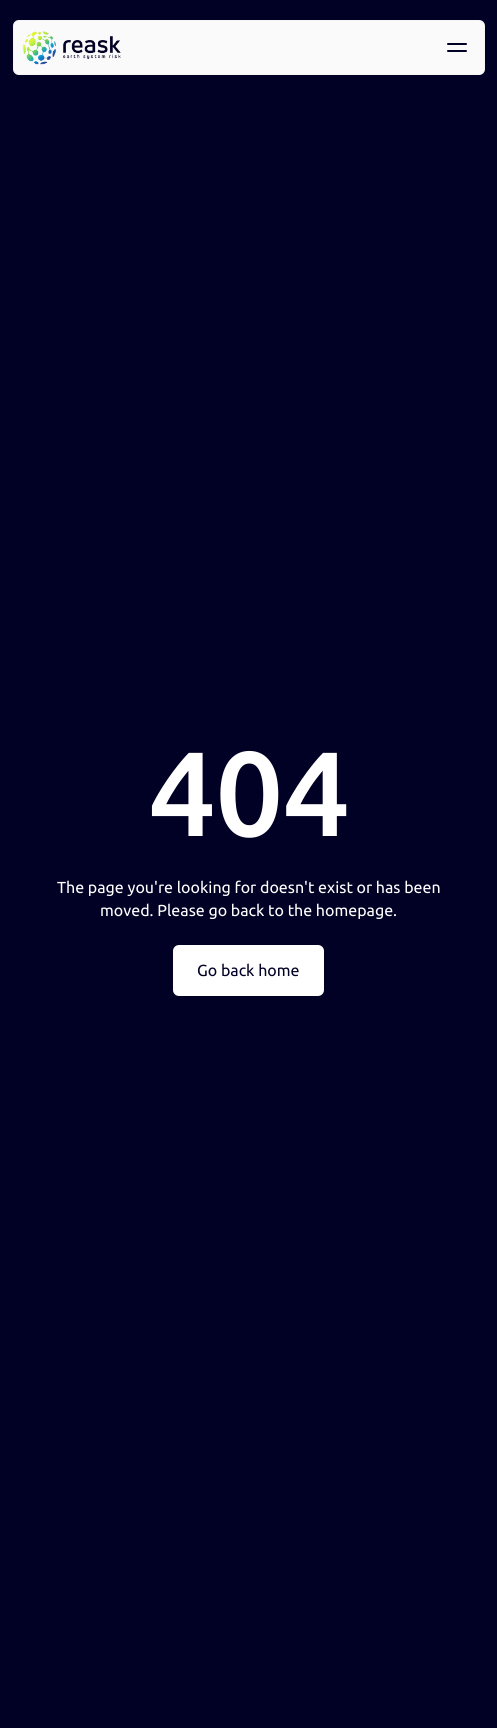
#include <cairo/cairo.h>
#include <math.h>
#include <stddef.h>

static cairo_t *cr;

static void use_color(int r, int g, int b) {
  cairo_set_source_rgb(cr, r / 255.0, g / 255.0, b / 255.0);
}

static void text(double x, double y, const char *s, const char *family, double size, int italic, int bold, int r, int g, int b) {
  cairo_select_font_face(cr, family, italic ? CAIRO_FONT_SLANT_ITALIC : CAIRO_FONT_SLANT_NORMAL,
    bold ? CAIRO_FONT_WEIGHT_BOLD : CAIRO_FONT_WEIGHT_NORMAL);
  cairo_set_font_size(cr, size);
  use_color(r, g, b);
  cairo_move_to(cr, x, y);
  cairo_show_text(cr, s);
}

static void spaced_text(double x, double y, const char *s, double letter, double word) {
  cairo_move_to(cr, x, y);
  while (*s) {
    char ch[5] = {0};
    int n = 0;
    do ch[n++] = *s++; while ((*s & 0xC0) == 0x80);
    cairo_show_text(cr, ch);
    cairo_rel_move_to(cr, letter + word * (*ch == ' '), 0);
  }
}

static void round_rect(double x, double y, double w, double h, double r) {
  cairo_new_sub_path(cr);
  cairo_arc(cr, x + w - r, y + h - r, r, 0, M_PI / 2);
  cairo_arc(cr, x + r, y + h - r, r, M_PI / 2, M_PI);
  cairo_arc(cr, x + r, y + r, r, M_PI, 1.5 * M_PI);
  cairo_arc(cr, x + w - r, y + r, r, 1.5 * M_PI, 2 * M_PI);
  cairo_close_path(cr);
}

static void picture(const char *path, double x, double y, double w, double h) {
  cairo_surface_t *image = cairo_image_surface_create_from_png(path);
  cairo_save(cr);
  cairo_set_source_surface(cr, image, x, y);
  cairo_rectangle(cr, x, y, w, h);
  cairo_fill(cr);
  cairo_restore(cr);
  cairo_surface_destroy(image);
}

static void draw(void) {
  use_color(1, 1, 37);
  cairo_paint(cr);
  use_color(250, 250, 250);
  round_rect(13, 20, 472, 55, 6);
  cairo_fill(cr);
  picture("img_01.png", 22, 31, 99, 34);
  use_color(1, 1, 37);
  round_rect(447, 43, 20, 2, 1);
  cairo_fill(cr);
  round_rect(447, 50, 20, 2, 1);
  cairo_fill(cr);
  round_rect(13.5, 20.5, 471, 54, 5.5);
  cairo_set_source_rgba(cr, 0.89, 0.89, 0.89, 0.2);
  cairo_set_line_width(cr, 1);
  cairo_stroke(cr);
  use_color(255, 255, 255);
  round_rect(173, 945, 151, 51, 6);
  cairo_fill(cr);
  cairo_select_font_face(cr, "Ubuntu Medium", CAIRO_FONT_SLANT_NORMAL, CAIRO_FONT_WEIGHT_NORMAL);
  cairo_set_font_size(cr, 120);
  spaced_text(148, 836, "404", -1, 0);
  text(57, 893, "The page you're looking for doesn't exist or has been", "Ubuntu", 16, 0, 0, 255, 255, 255);
  text(100, 916, "moved. Please go back to the homepage.", "Ubuntu", 16, 0, 0, 255, 255, 255);
  text(197, 976, "Go back home", "Ubuntu", 16, 0, 0, 1, 1, 37);
}

int main(void) {
  cairo_surface_t *surface = cairo_image_surface_create(CAIRO_FORMAT_RGB24, 497, 1728);
  cr = cairo_create(surface);
  cairo_font_options_t *options = cairo_font_options_create();
  cairo_font_options_set_hint_metrics(options, CAIRO_HINT_METRICS_OFF);
  cairo_font_options_set_hint_style(options, CAIRO_HINT_STYLE_NONE);
  cairo_set_font_options(cr, options);
  cairo_set_miter_limit(cr, 4);
  draw();
  cairo_surface_write_to_png(surface, "out.png");
  cairo_font_options_destroy(options);
  cairo_destroy(cr);
  cairo_surface_destroy(surface);
  return 0;
}
